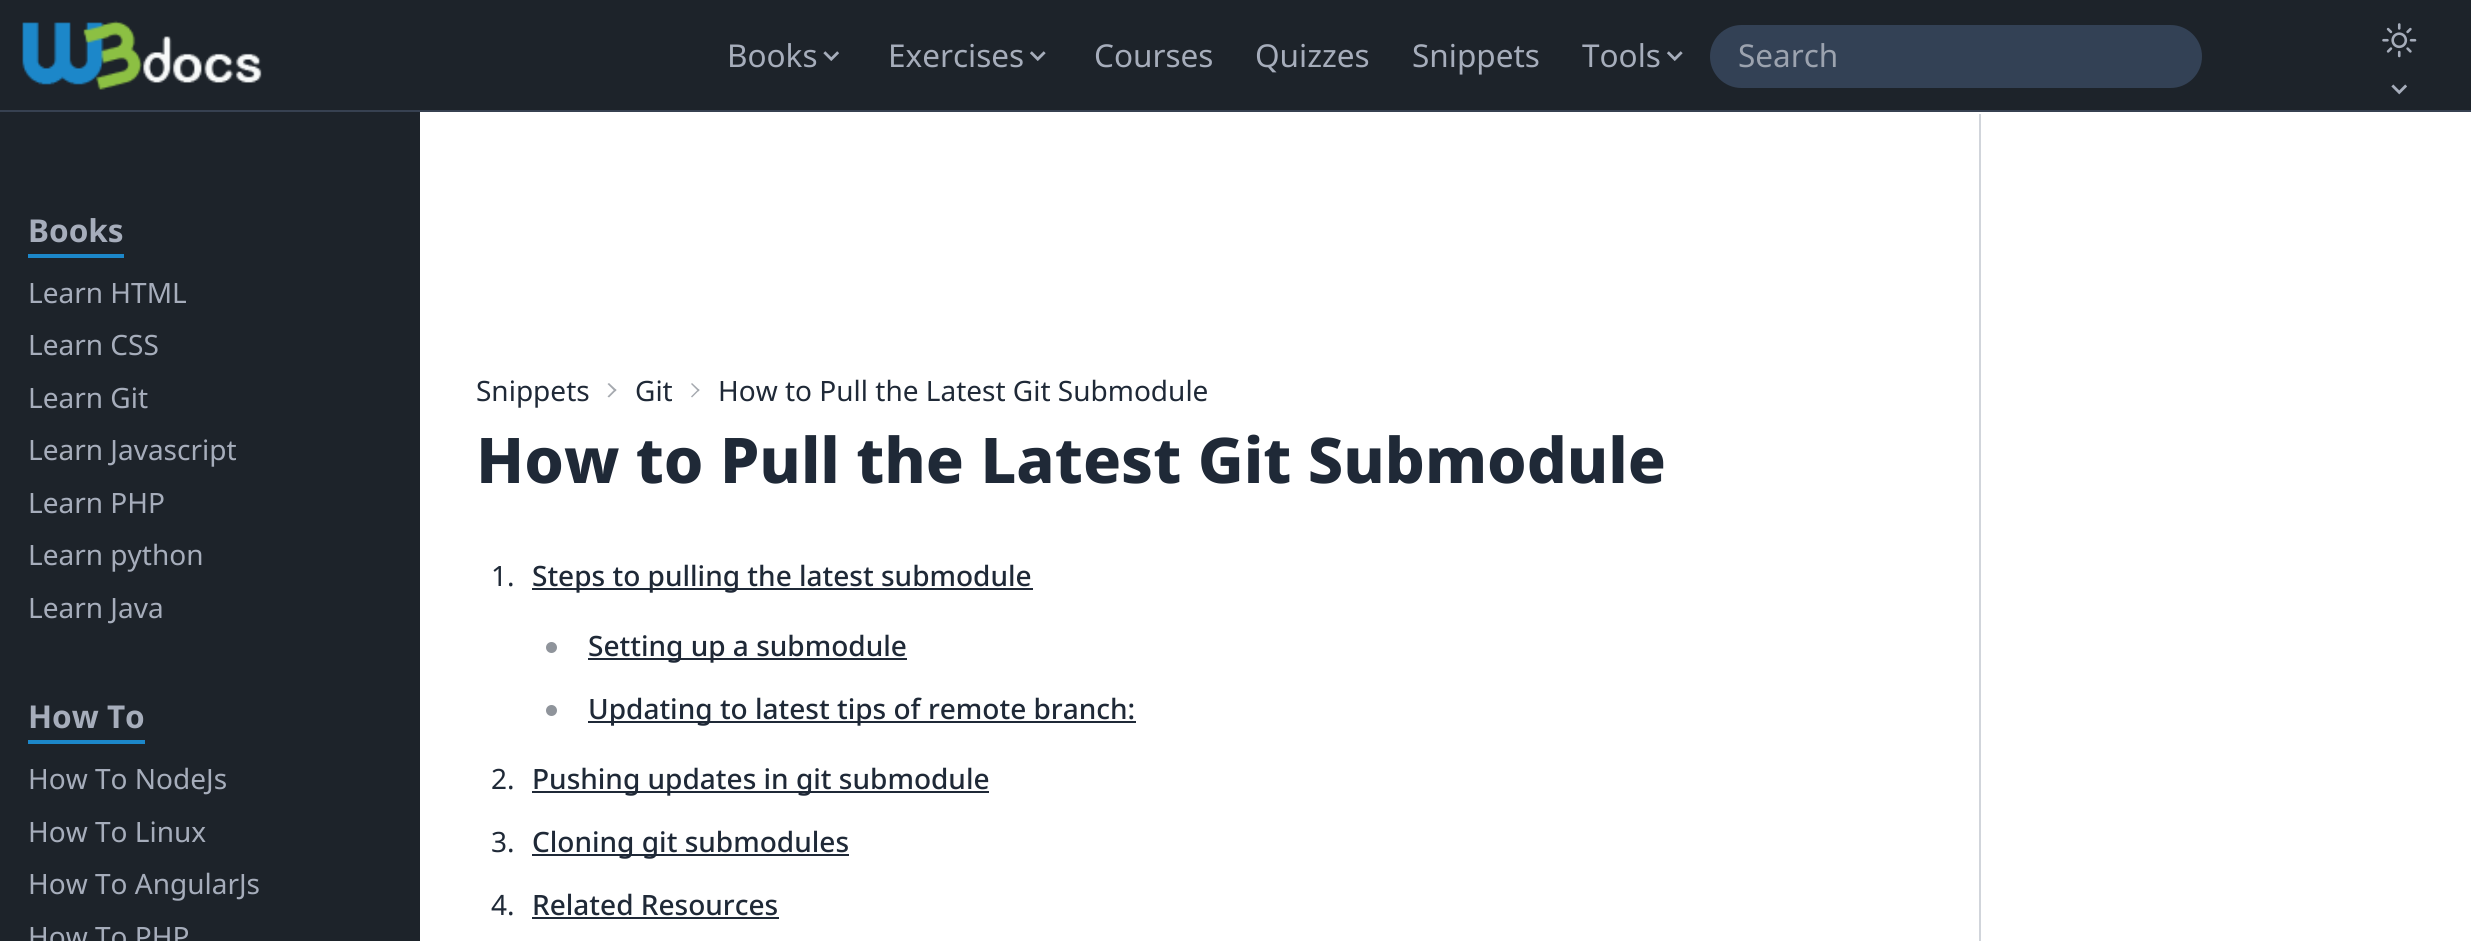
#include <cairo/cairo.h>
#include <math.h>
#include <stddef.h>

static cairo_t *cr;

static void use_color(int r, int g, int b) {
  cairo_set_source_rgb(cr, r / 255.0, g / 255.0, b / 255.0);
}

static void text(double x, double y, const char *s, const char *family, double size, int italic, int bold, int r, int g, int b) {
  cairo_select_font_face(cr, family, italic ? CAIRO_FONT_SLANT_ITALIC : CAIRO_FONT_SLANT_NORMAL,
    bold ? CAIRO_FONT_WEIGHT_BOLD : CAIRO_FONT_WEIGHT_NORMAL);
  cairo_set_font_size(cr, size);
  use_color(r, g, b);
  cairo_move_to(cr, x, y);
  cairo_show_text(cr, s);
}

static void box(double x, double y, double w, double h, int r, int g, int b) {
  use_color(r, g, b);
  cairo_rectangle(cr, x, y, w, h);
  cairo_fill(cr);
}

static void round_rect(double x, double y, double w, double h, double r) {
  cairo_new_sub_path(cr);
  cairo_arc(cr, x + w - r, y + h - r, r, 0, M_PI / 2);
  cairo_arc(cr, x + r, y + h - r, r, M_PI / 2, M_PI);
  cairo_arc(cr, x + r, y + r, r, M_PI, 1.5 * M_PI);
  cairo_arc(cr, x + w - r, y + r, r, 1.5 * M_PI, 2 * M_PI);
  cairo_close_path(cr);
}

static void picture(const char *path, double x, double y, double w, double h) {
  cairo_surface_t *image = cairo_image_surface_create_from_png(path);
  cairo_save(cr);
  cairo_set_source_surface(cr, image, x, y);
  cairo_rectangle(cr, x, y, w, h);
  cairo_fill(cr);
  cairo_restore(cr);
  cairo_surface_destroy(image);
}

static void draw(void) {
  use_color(255, 255, 255);
  cairo_paint(cr);
  box(0, 0, 2471, 110, 29, 35, 42);
  box(0, 110, 2471, 2, 55, 65, 81);
  picture("img_01.png", 22, 20, 240, 70);
  picture("img_02.png", 823, 51, 16, 10);
  picture("img_03.png", 1030, 51, 16, 10);
  picture("img_03.png", 1667, 51, 16, 10);
  use_color(51, 65, 85);
  round_rect(1710, 25, 492, 63, 31.5);
  cairo_fill(cr);
  picture("img_04.png", 2382, 23, 35, 35);
  picture("img_05.png", 2391, 84, 16, 11);
  box(0, 112, 420, 829, 29, 35, 42);
  box(28, 254, 96, 4, 28, 135, 201);
  box(28, 740, 117, 4, 28, 135, 201);
  use_color(165, 169, 175);
  cairo_new_path(cr);
  cairo_move_to(cr, 609, 383);
  cairo_line_to(cr, 616.5, 390);
  cairo_line_to(cr, 615, 391.5);
  cairo_line_to(cr, 607.5, 384);
  cairo_close_path(cr);
  cairo_fill(cr);
  cairo_new_path(cr);
  cairo_move_to(cr, 615, 389);
  cairo_line_to(cr, 616.5, 390);
  cairo_line_to(cr, 609, 397.5);
  cairo_line_to(cr, 607.5, 396.5);
  cairo_close_path(cr);
  cairo_fill(cr);
  cairo_new_path(cr);
  cairo_move_to(cr, 692, 383);
  cairo_line_to(cr, 699.5, 390);
  cairo_line_to(cr, 698.5, 391.5);
  cairo_line_to(cr, 691, 384);
  cairo_close_path(cr);
  cairo_fill(cr);
  cairo_new_path(cr);
  cairo_move_to(cr, 698.5, 389);
  cairo_line_to(cr, 699.5, 390);
  cairo_line_to(cr, 692, 397.5);
  cairo_line_to(cr, 691, 396.5);
  cairo_close_path(cr);
  cairo_fill(cr);
  box(532, 588, 501, 2, 31, 41, 55);
  use_color(143, 148, 155);
  cairo_arc(cr, 551.5, 647.5, 5.5, 0, 2 * M_PI);
  cairo_fill(cr);
  box(588, 658, 319, 2, 31, 41, 55);
  use_color(143, 148, 155);
  cairo_arc(cr, 551.5, 710.5, 5.5, 0, 2 * M_PI);
  cairo_fill(cr);
  box(588, 721, 548, 2, 31, 41, 55);
  box(532, 791, 457, 2, 31, 41, 55);
  box(532, 854, 317, 2, 31, 41, 55);
  box(532, 917, 247, 2, 31, 41, 55);
  box(1979, 114, 2, 827, 209, 213, 219);
  text(727, 67, "Books", "Noto Sans", 31.5, 0, 0, 166, 173, 187);
  text(888, 67, "Exercises", "Noto Sans", 31.5, 0, 0, 166, 173, 187);
  text(1094, 67, "Courses", "Noto Sans", 31.5, 0, 0, 166, 173, 187);
  text(1255, 67, "Quizzes", "Noto Sans", 31.5, 0, 0, 166, 173, 187);
  text(1412, 67, "Snippets", "Noto Sans", 31.5, 0, 0, 166, 173, 187);
  text(1582, 67, "Tools", "Noto Sans", 31.5, 0, 0, 166, 173, 187);
  text(1738, 67, "Search", "Noto Sans", 31.5, 0, 0, 156, 163, 175);
  text(28, 242, "Books", "Noto Sans", 31.5, 0, 1, 166, 173, 187);
  text(28, 303, "Learn HTML", "Noto Sans", 28, 0, 0, 166, 173, 187);
  text(28, 355, "Learn CSS", "Noto Sans", 28, 0, 0, 166, 173, 187);
  text(28, 408, "Learn Git", "Noto Sans", 28, 0, 0, 166, 173, 187);
  text(28, 460, "Learn Javascript", "Noto Sans", 28, 0, 0, 166, 173, 187);
  text(28, 513, "Learn PHP", "Noto Sans", 28, 0, 0, 166, 173, 187);
  text(28, 565, "Learn python", "Noto Sans", 28, 0, 0, 166, 173, 187);
  text(28, 618, "Learn Java", "Noto Sans", 28, 0, 0, 166, 173, 187);
  text(28, 728, "How To", "Noto Sans", 31.5, 0, 1, 166, 173, 187);
  text(28, 789, "How To NodeJs", "Noto Sans", 28, 0, 0, 166, 173, 187);
  text(28, 842, "How To Linux", "Noto Sans", 28, 0, 0, 166, 173, 187);
  text(28, 894, "How To AngularJs", "Noto Sans", 28, 0, 0, 166, 173, 187);
  text(28, 947, "How To PHP", "Noto Sans", 28, 0, 0, 166, 173, 187);
  text(476, 401, "Snippets", "Noto Sans", 28, 0, 0, 31, 41, 55);
  text(635, 401, "Git", "Noto Sans", 28, 0, 0, 31, 41, 55);
  text(718, 401, "How to Pull the Latest Git Submodule", "Noto Sans", 28, 0, 0, 31, 41, 55);
  text(476, 483, "How to Pull the Latest Git Submodule", "Noto Sans ExtraBold", 63, 0, 0, 31, 41, 55);
  text(491, 586, "1.", "Noto Sans", 28, 0, 0, 31, 41, 55);
  text(532, 586, "Steps to pulling the latest submodule", "Noto Sans Medium", 28, 0, 0, 31, 41, 55);
  text(588, 656, "Setting up a submodule", "Noto Sans Medium", 28, 0, 0, 31, 41, 55);
  text(588, 719, "Updating to latest tips of remote branch:", "Noto Sans Medium", 28, 0, 0, 31, 41, 55);
  text(491, 789, "2.", "Noto Sans", 28, 0, 0, 31, 41, 55);
  text(532, 789, "Pushing updates in git submodule", "Noto Sans Medium", 28, 0, 0, 31, 41, 55);
  text(491, 852, "3.", "Noto Sans", 28, 0, 0, 31, 41, 55);
  text(532, 852, "Cloning git submodules", "Noto Sans Medium", 28, 0, 0, 31, 41, 55);
  text(491, 915, "4.", "Noto Sans", 28, 0, 0, 31, 41, 55);
  text(532, 915, "Related Resources", "Noto Sans Medium", 28, 0, 0, 31, 41, 55);
}

int main(void) {
  cairo_surface_t *surface = cairo_image_surface_create(CAIRO_FORMAT_RGB24, 2471, 941);
  cr = cairo_create(surface);
  cairo_font_options_t *options = cairo_font_options_create();
  cairo_font_options_set_hint_metrics(options, CAIRO_HINT_METRICS_OFF);
  cairo_font_options_set_hint_style(options, CAIRO_HINT_STYLE_NONE);
  cairo_set_font_options(cr, options);
  cairo_set_miter_limit(cr, 4);
  draw();
  cairo_surface_write_to_png(surface, "out.png");
  cairo_font_options_destroy(options);
  cairo_destroy(cr);
  cairo_surface_destroy(surface);
  return 0;
}
